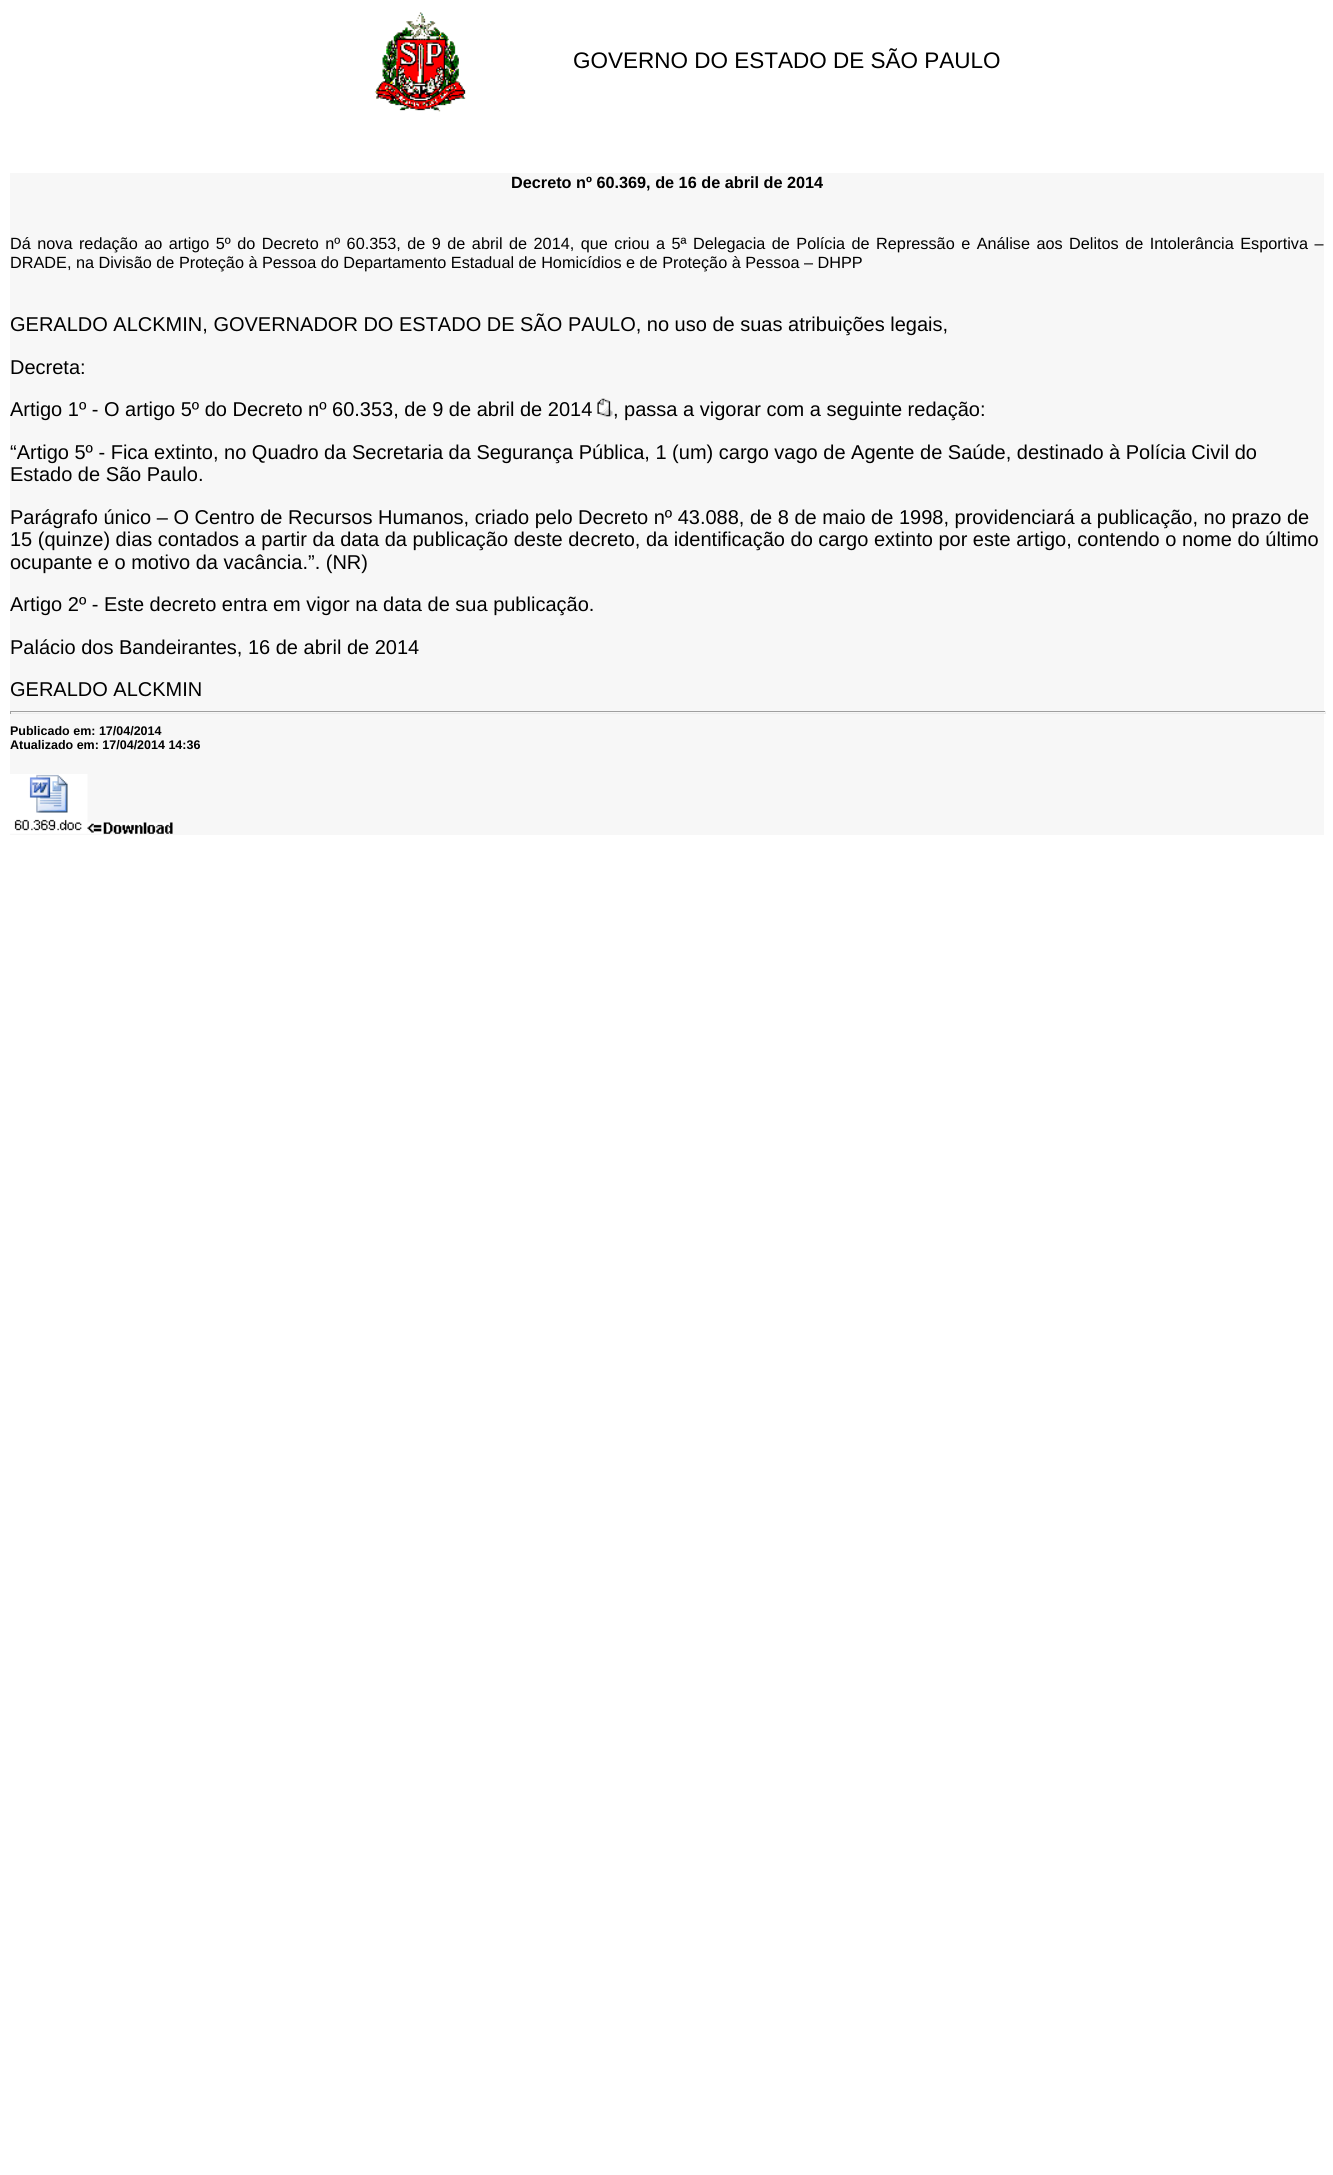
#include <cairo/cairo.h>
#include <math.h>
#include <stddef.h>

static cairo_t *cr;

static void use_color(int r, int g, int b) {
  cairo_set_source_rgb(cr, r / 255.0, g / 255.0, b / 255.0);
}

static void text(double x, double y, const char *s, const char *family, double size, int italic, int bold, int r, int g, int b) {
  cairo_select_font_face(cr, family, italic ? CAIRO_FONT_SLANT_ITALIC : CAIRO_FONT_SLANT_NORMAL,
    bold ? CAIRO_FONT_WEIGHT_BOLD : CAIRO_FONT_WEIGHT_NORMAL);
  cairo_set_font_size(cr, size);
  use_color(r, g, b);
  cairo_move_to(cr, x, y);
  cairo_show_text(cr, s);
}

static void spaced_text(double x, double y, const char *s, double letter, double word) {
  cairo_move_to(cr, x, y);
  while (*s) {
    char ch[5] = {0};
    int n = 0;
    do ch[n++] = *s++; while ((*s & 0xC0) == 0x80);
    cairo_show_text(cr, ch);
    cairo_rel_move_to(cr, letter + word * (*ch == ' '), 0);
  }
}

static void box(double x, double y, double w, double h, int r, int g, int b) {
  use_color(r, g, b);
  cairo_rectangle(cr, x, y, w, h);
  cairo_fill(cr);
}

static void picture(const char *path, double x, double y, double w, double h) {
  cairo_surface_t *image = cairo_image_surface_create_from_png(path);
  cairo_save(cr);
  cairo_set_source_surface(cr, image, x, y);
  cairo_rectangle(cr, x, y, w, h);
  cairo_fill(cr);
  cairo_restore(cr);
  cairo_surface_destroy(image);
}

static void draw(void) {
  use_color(255, 255, 255);
  cairo_paint(cr);
  picture("img_01.png", 374, 12, 92, 100);
  box(10, 173, 1314, 662, 247, 247, 247);
  picture("img_02.png", 597, 398, 16, 19);
  box(10, 711, 1316, 1, 159, 159, 159);
  box(1325, 711, 1, 3, 238, 238, 238);
  box(10, 713, 1316, 1, 238, 238, 238);
  box(10, 711, 1, 3, 159, 159, 159);
  picture("img_03.png", 10, 774, 78, 60);
  picture("img_04.png", 87, 822, 86, 12);
  text(573, 68, "GOVERNO DO ESTADO DE SÃO PAULO", "Liberation Sans", 22.5, 0, 0, 0, 0, 0);
  text(511, 188, "Decreto nº 60.369, de 16 de abril de 2014", "Liberation Sans", 16.25, 0, 1, 0, 0, 0);
  cairo_select_font_face(cr, "Liberation Sans", CAIRO_FONT_SLANT_NORMAL, CAIRO_FONT_WEIGHT_NORMAL);
  spaced_text(10, 249, "Dá nova redação ao artigo 5º do Decreto nº 60.353, de 9 de abril de 2014, que criou a 5ª Delegacia de Polícia de Repressão e Análise aos Delitos de Intolerância Esportiva –", 0, 1.95);
  text(10, 268, "DRADE, na Divisão de Proteção à Pessoa do Departamento Estadual de Homicídios e de Proteção à Pessoa – DHPP", "Liberation Sans", 16.25, 0, 0, 0, 0, 0);
  text(10, 331, "GERALDO ALCKMIN, GOVERNADOR DO ESTADO DE SÃO PAULO, no uso de suas atribuições legais,", "Liberation Sans", 20, 0, 0, 0, 0, 0);
  text(10, 374, "Decreta:", "Liberation Sans", 20, 0, 0, 0, 0, 0);
  text(10, 416, "Artigo 1º - O artigo 5º do Decreto nº 60.353, de 9 de abril de 2014", "Liberation Sans", 20, 0, 0, 0, 0, 0);
  text(613, 416, ", passa a vigorar com a seguinte redação:", "Liberation Sans", 20, 0, 0, 0, 0, 0);
  text(10, 459, "“Artigo 5º - Fica extinto, no Quadro da Secretaria da Segurança Pública, 1 (um) cargo vago de Agente de Saúde, destinado à Polícia Civil do", "Liberation Sans", 20, 0, 0, 0, 0, 0);
  text(10, 481, "Estado de São Paulo.", "Liberation Sans", 20, 0, 0, 0, 0, 0);
  text(10, 524, "Parágrafo único – O Centro de Recursos Humanos, criado pelo Decreto nº 43.088, de 8 de maio de 1998, providenciará a publicação, no prazo de", "Liberation Sans", 20, 0, 0, 0, 0, 0);
  text(10, 546, "15 (quinze) dias contados a partir da data da publicação deste decreto, da identificação do cargo extinto por este artigo, contendo o nome do último", "Liberation Sans", 20, 0, 0, 0, 0, 0);
  text(10, 569, "ocupante e o motivo da vacância.”. (NR)", "Liberation Sans", 20, 0, 0, 0, 0, 0);
  text(10, 611, "Artigo 2º - Este decreto entra em vigor na data de sua publicação.", "Liberation Sans", 20, 0, 0, 0, 0, 0);
  text(10, 654, "Palácio dos Bandeirantes, 16 de abril de 2014", "Liberation Sans", 20, 0, 0, 0, 0, 0);
  text(10, 696, "GERALDO ALCKMIN", "Liberation Sans", 20, 0, 0, 0, 0, 0);
  text(10, 735, "Publicado em: 17/04/2014", "Liberation Sans", 12.5, 0, 1, 0, 0, 0);
  text(10, 749, "Atualizado em: 17/04/2014 14:36", "Liberation Sans", 12.5, 0, 1, 0, 0, 0);
}

int main(void) {
  cairo_surface_t *surface = cairo_image_surface_create(CAIRO_FORMAT_RGB24, 1333, 2175);
  cr = cairo_create(surface);
  cairo_font_options_t *options = cairo_font_options_create();
  cairo_font_options_set_hint_metrics(options, CAIRO_HINT_METRICS_OFF);
  cairo_font_options_set_hint_style(options, CAIRO_HINT_STYLE_NONE);
  cairo_set_font_options(cr, options);
  cairo_set_miter_limit(cr, 4);
  draw();
  cairo_surface_write_to_png(surface, "out.png");
  cairo_font_options_destroy(options);
  cairo_destroy(cr);
  cairo_surface_destroy(surface);
  return 0;
}
